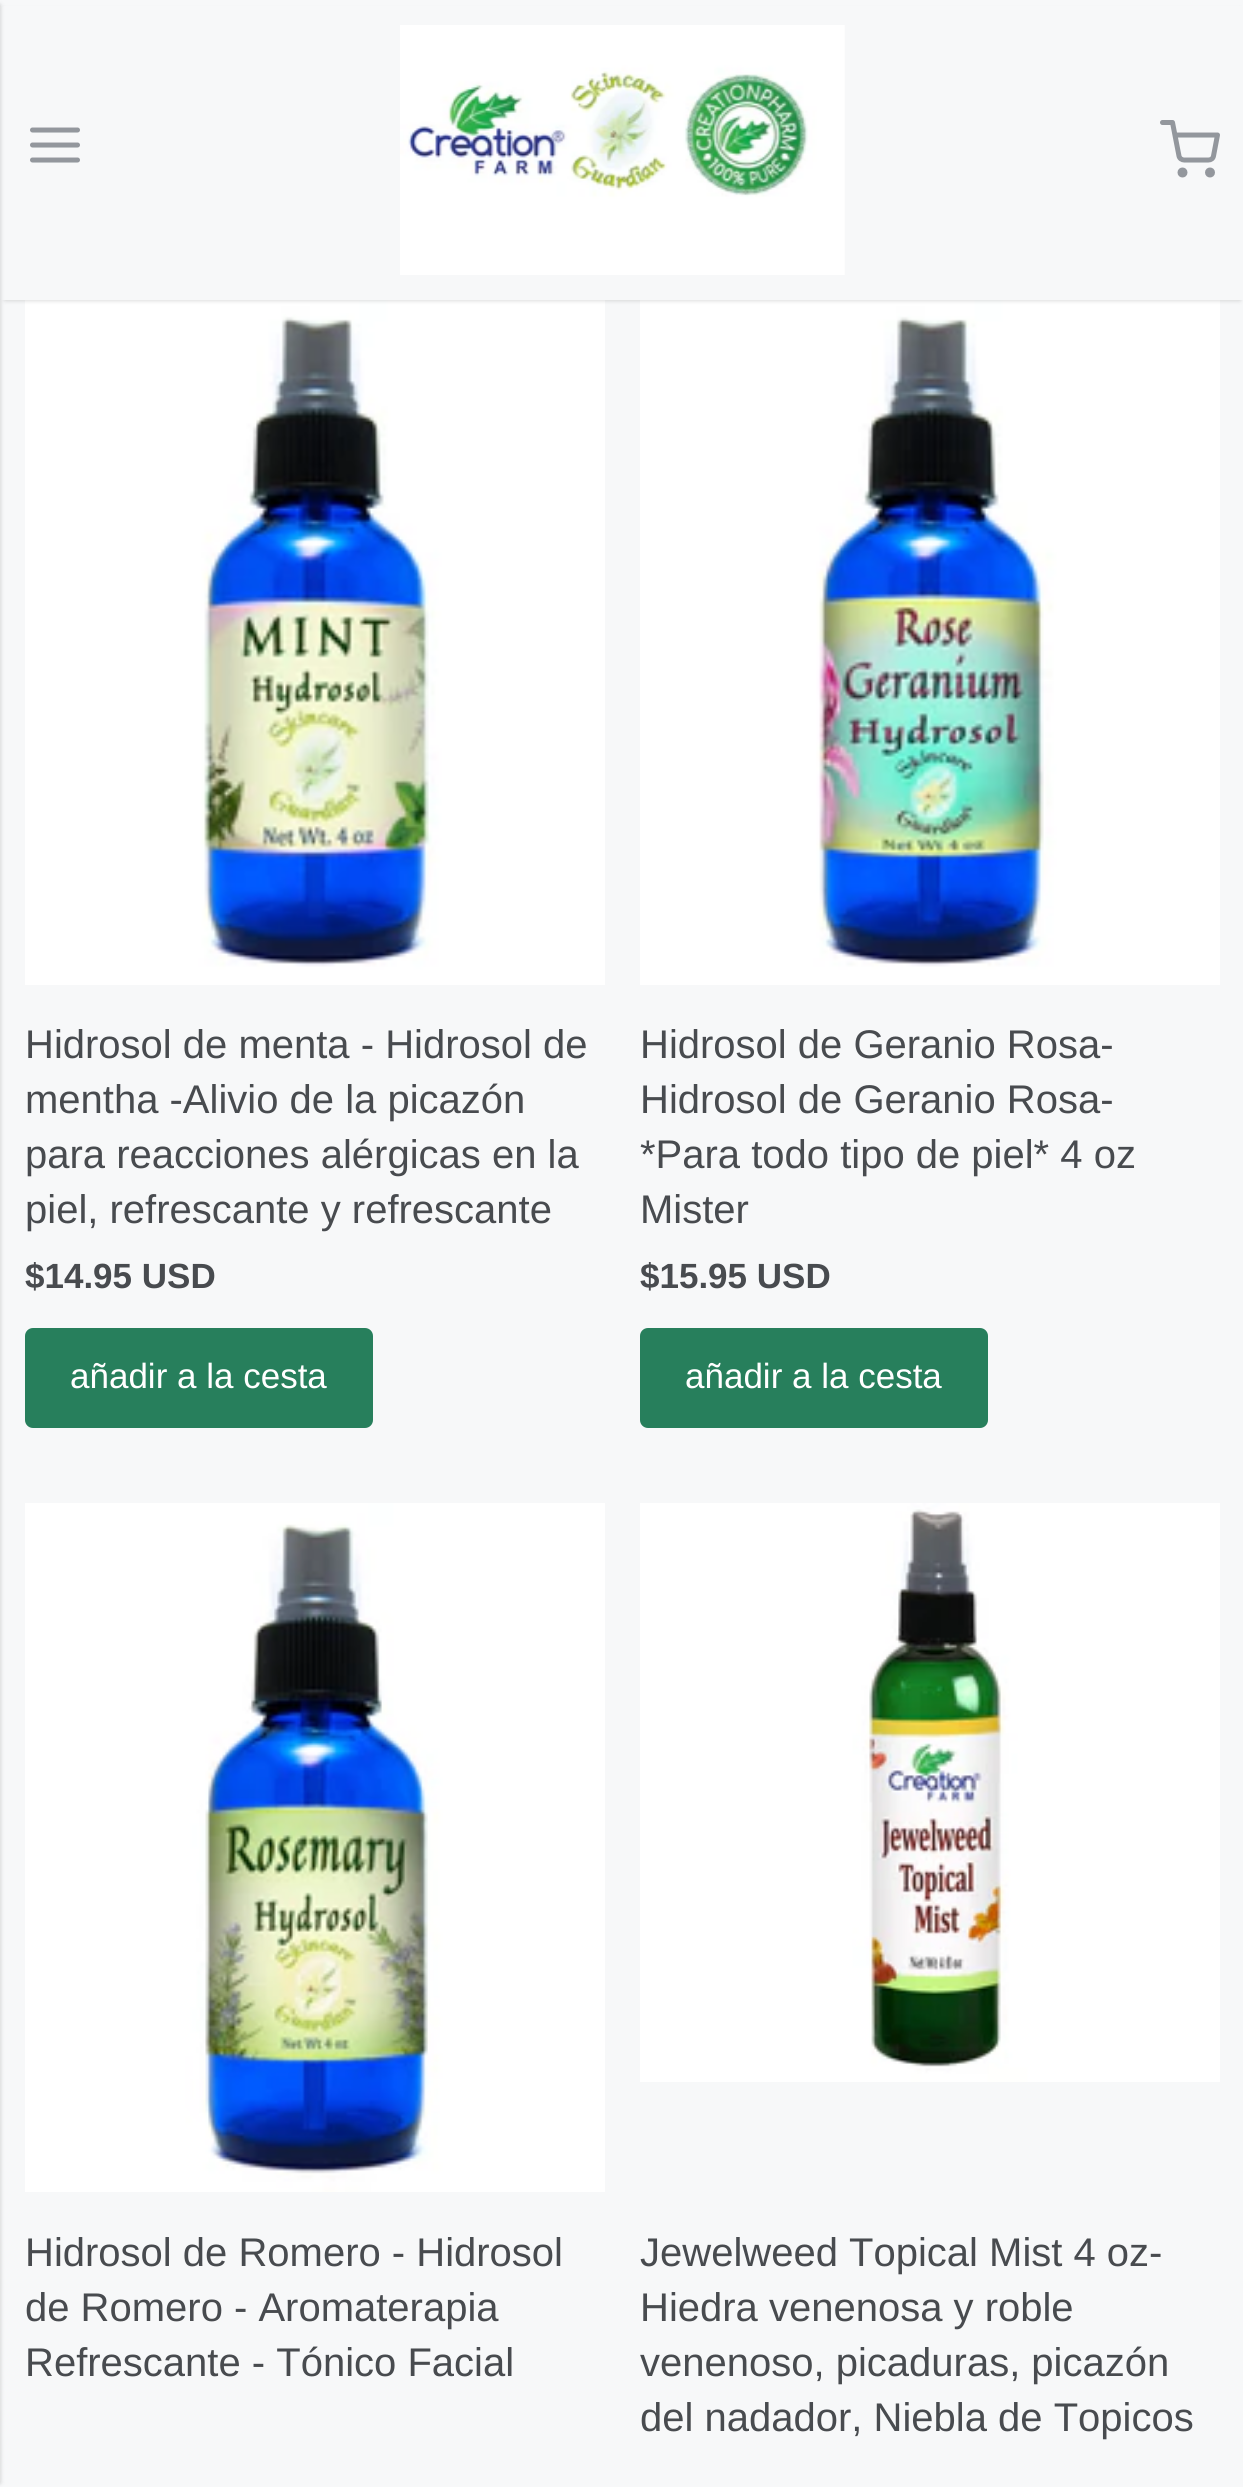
#include <cairo/cairo.h>
#include <math.h>
#include <stddef.h>

static cairo_t *cr;

static void use_color(int r, int g, int b) {
  cairo_set_source_rgb(cr, r / 255.0, g / 255.0, b / 255.0);
}

static void text(double x, double y, const char *s, const char *family, double size, int italic, int bold, int r, int g, int b) {
  cairo_select_font_face(cr, family, italic ? CAIRO_FONT_SLANT_ITALIC : CAIRO_FONT_SLANT_NORMAL,
    bold ? CAIRO_FONT_WEIGHT_BOLD : CAIRO_FONT_WEIGHT_NORMAL);
  cairo_set_font_size(cr, size);
  use_color(r, g, b);
  cairo_move_to(cr, x, y);
  cairo_show_text(cr, s);
}

static void box(double x, double y, double w, double h, int r, int g, int b) {
  use_color(r, g, b);
  cairo_rectangle(cr, x, y, w, h);
  cairo_fill(cr);
}

static void round_rect(double x, double y, double w, double h, double r) {
  cairo_new_sub_path(cr);
  cairo_arc(cr, x + w - r, y + h - r, r, 0, M_PI / 2);
  cairo_arc(cr, x + r, y + h - r, r, M_PI / 2, M_PI);
  cairo_arc(cr, x + r, y + r, r, M_PI, 1.5 * M_PI);
  cairo_arc(cr, x + w - r, y + r, r, 1.5 * M_PI, 2 * M_PI);
  cairo_close_path(cr);
}

static void shadow(double x, double y, double w, double h, double r, double blur, double alpha) {
  cairo_push_group_with_content(cr, CAIRO_CONTENT_ALPHA);
  cairo_set_operator(cr, CAIRO_OPERATOR_SOURCE);
  for (int i = 15; i >= -15 && fmin(w, h) + blur * i / 3 > 0; i -= 2) {
    double e = blur * i / 6;
    cairo_set_source_rgba(cr, 0, 0, 0, alpha * erfc((i - 1) / 8.5) / 2);
    round_rect(x - e, y - e, w + 2 * e, h + 2 * e, fmax(0, fmin(r + e + blur * .6, fmin(w, h) / 2 + e)));
    cairo_fill(cr);
  }
  cairo_pattern_t *soft = cairo_pop_group(cr);
  cairo_mask(cr, soft);
  cairo_pattern_destroy(soft);
}

static void picture(const char *path, double x, double y, double w, double h) {
  cairo_surface_t *image = cairo_image_surface_create_from_png(path);
  cairo_save(cr);
  cairo_set_source_surface(cr, image, x, y);
  cairo_rectangle(cr, x, y, w, h);
  cairo_fill(cr);
  cairo_restore(cr);
  cairo_surface_destroy(image);
}

static void draw(void) {
  use_color(247, 248, 249);
  cairo_paint(cr);
  picture("img_02.png", 25, 300, 580, 685);
  picture("img_03.png", 640, 300, 580, 685);
  use_color(0, 0, 0);
  shadow(5, 10, 1235, 290, 0, 2.5, 0.2);
  box(1, 6, 1242, 294, 247, 248, 249);
  use_color(0, 0, 0);
  shadow(-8, 5, 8, 2478, 0, 2.5, 0.2);
  cairo_new_path(cr);
  cairo_move_to(cr, 32.5, 145);
  cairo_line_to(cr, 77.5, 145);
  cairo_move_to(cr, 32.5, 130);
  cairo_line_to(cr, 77.5, 130);
  cairo_move_to(cr, 32.5, 160);
  cairo_line_to(cr, 77.5, 160);
  use_color(147, 151, 157);
  cairo_set_line_width(cr, 5);
  cairo_set_line_cap(cr, CAIRO_LINE_CAP_ROUND);
  cairo_set_line_join(cr, CAIRO_LINE_JOIN_ROUND);
  cairo_stroke(cr);
  picture("img_01.png", 400, 25, 445, 250);
  cairo_new_path(cr);
  cairo_move_to(cr, 1162.5, 122.5);
  cairo_line_to(cr, 1172.5, 122.5);
  cairo_line_to(cr, 1179, 156);
  cairo_curve_to(cr, 1179.5, 158.5, 1182, 160, 1184, 160);
  cairo_line_to(cr, 1208.5, 160);
  cairo_curve_to(cr, 1211, 160, 1213, 158.5, 1213.5, 156);
  cairo_line_to(cr, 1217.5, 135);
  cairo_line_to(cr, 1175, 135);
  cairo_stroke(cr);
  cairo_arc(cr, 1182.5, 172.5, 2.5, 0, 2 * M_PI);
  cairo_set_line_cap(cr, CAIRO_LINE_CAP_BUTT);
  cairo_set_line_join(cr, CAIRO_LINE_JOIN_MITER);
  cairo_stroke(cr);
  cairo_arc(cr, 1210, 172.5, 2.5, 0, 2 * M_PI);
  cairo_stroke(cr);
  use_color(39, 127, 92);
  round_rect(27.5, 1330.5, 343, 95, 5.5);
  cairo_fill_preserve(cr);
  cairo_stroke(cr);
  round_rect(642.5, 1330.5, 343, 95, 5.5);
  cairo_fill_preserve(cr);
  cairo_stroke(cr);
  picture("img_04.png", 25, 1503, 580, 689);
  picture("img_05.png", 640, 1503, 580, 579);
  text(25, 1058, "Hidrosol de menta - Hidrosol de", "Liberation Sans", 40, 0, 0, 72, 75, 79);
  text(25, 1113, "mentha -Alivio de la picazón", "Liberation Sans", 40, 0, 0, 72, 75, 79);
  text(25, 1168, "para reacciones alérgicas en la", "Liberation Sans", 40, 0, 0, 72, 75, 79);
  text(25, 1223, "piel, refrescante y refrescante", "Liberation Sans", 40, 0, 0, 72, 75, 79);
  text(25, 1288, "$14.95 USD", "Liberation Sans", 35, 0, 1, 72, 75, 79);
  text(70, 1388, "añadir a la cesta", "Liberation Sans", 35, 0, 0, 255, 255, 255);
  text(640, 1058, "Hidrosol de Geranio Rosa-", "Liberation Sans", 40, 0, 0, 72, 75, 79);
  text(640, 1113, "Hidrosol de Geranio Rosa-", "Liberation Sans", 40, 0, 0, 72, 75, 79);
  text(640, 1168, "*Para todo tipo de piel* 4 oz", "Liberation Sans", 40, 0, 0, 72, 75, 79);
  text(640, 1223, "Mister", "Liberation Sans", 40, 0, 0, 72, 75, 79);
  text(640, 1288, "$15.95 USD", "Liberation Sans", 35, 0, 1, 72, 75, 79);
  text(685, 1388, "añadir a la cesta", "Liberation Sans", 35, 0, 0, 255, 255, 255);
  text(25, 2266, "Hidrosol de Romero - Hidrosol", "Liberation Sans", 40, 0, 0, 72, 75, 79);
  text(25, 2321, "de Romero - Aromaterapia", "Liberation Sans", 40, 0, 0, 72, 75, 79);
  text(25, 2376, "Refrescante - Tónico Facial", "Liberation Sans", 40, 0, 0, 72, 75, 79);
  text(640, 2266, "Jewelweed Topical Mist 4 oz-", "Liberation Sans", 40, 0, 0, 72, 75, 79);
  text(640, 2321, "Hiedra venenosa y roble", "Liberation Sans", 40, 0, 0, 72, 75, 79);
  text(640, 2376, "venenoso, picaduras, picazón", "Liberation Sans", 40, 0, 0, 72, 75, 79);
  text(640, 2431, "del nadador, Niebla de Topicos", "Liberation Sans", 40, 0, 0, 72, 75, 79);
}

int main(void) {
  cairo_surface_t *surface = cairo_image_surface_create(CAIRO_FORMAT_RGB24, 1243, 2487);
  cr = cairo_create(surface);
  cairo_font_options_t *options = cairo_font_options_create();
  cairo_font_options_set_hint_metrics(options, CAIRO_HINT_METRICS_OFF);
  cairo_font_options_set_hint_style(options, CAIRO_HINT_STYLE_NONE);
  cairo_set_font_options(cr, options);
  cairo_set_miter_limit(cr, 4);
  draw();
  cairo_surface_write_to_png(surface, "out.png");
  cairo_font_options_destroy(options);
  cairo_destroy(cr);
  cairo_surface_destroy(surface);
  return 0;
}
